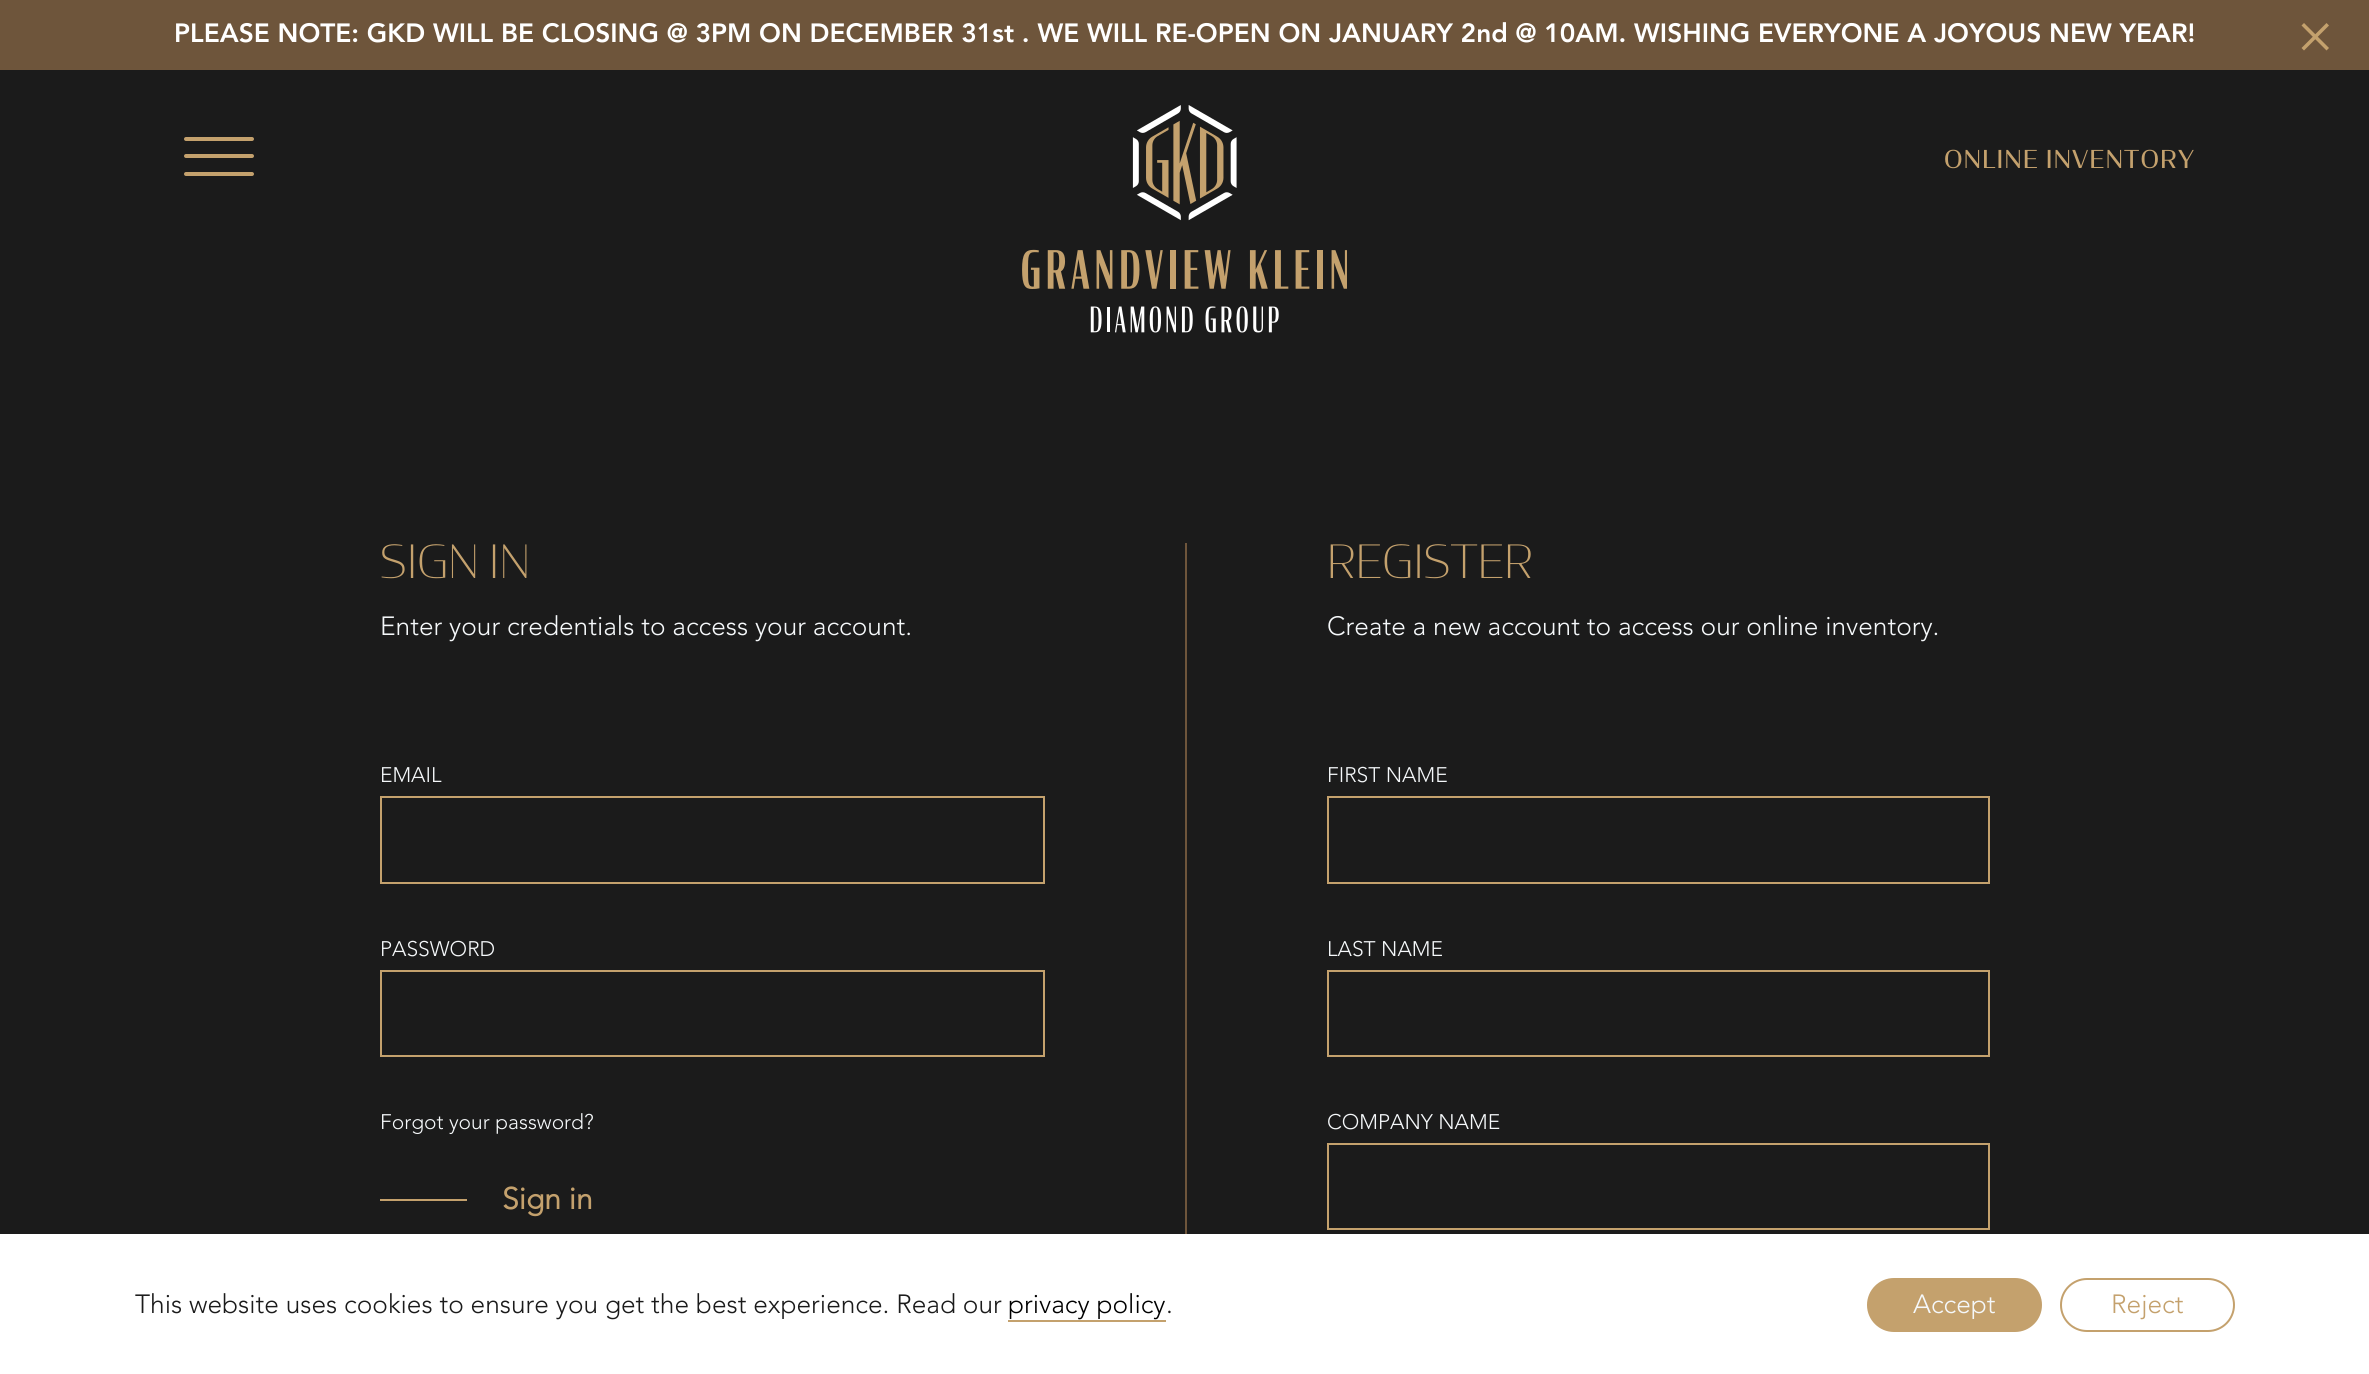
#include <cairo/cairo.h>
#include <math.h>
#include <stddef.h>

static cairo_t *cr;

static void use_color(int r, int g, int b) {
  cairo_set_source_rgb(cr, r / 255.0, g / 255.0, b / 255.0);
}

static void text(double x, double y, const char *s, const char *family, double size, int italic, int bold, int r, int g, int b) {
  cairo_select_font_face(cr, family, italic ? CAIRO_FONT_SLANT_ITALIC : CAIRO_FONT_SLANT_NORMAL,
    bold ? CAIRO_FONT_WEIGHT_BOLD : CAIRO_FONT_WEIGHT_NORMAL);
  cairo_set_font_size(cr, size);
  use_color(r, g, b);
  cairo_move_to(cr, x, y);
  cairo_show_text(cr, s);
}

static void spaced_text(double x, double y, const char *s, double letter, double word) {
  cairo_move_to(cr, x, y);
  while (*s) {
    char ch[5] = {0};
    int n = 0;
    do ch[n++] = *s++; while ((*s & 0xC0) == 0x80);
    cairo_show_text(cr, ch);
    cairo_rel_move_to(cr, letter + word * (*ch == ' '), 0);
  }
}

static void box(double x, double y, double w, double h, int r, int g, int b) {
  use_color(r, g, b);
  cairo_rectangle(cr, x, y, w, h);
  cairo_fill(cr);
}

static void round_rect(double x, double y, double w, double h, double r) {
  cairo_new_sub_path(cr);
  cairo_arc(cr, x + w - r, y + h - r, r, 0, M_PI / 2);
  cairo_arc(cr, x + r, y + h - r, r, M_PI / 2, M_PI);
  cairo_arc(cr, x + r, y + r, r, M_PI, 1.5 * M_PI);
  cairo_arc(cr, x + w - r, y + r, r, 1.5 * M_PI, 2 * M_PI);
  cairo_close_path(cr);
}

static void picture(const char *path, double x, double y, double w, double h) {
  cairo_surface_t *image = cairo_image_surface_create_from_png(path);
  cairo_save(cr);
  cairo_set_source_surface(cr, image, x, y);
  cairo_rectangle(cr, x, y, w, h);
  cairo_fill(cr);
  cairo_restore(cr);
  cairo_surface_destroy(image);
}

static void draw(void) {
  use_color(27, 27, 27);
  cairo_paint(cr);
  box(0, 0, 2369, 70, 110, 85, 59);
  use_color(196, 161, 109);
  cairo_new_path(cr);
  cairo_move_to(cr, 2326.5, 23);
  cairo_line_to(cr, 2329, 25.5);
  cairo_line_to(cr, 2304, 50.5);
  cairo_line_to(cr, 2301.5, 48);
  cairo_close_path(cr);
  cairo_fill(cr);
  cairo_new_path(cr);
  cairo_move_to(cr, 2301.5, 25.5);
  cairo_line_to(cr, 2304, 23);
  cairo_line_to(cr, 2329, 48);
  cairo_line_to(cr, 2326.5, 50.5);
  cairo_close_path(cr);
  cairo_fill(cr);
  round_rect(184, 137, 70, 4, 2);
  cairo_fill(cr);
  round_rect(184, 154, 70, 4, 2);
  cairo_fill(cr);
  round_rect(184, 172, 70, 4, 2);
  cairo_fill(cr);
  picture("img_01.png", 1022, 105, 325, 228);
  cairo_rectangle(cr, 381, 797, 663, 86);
  cairo_stroke(cr);
  cairo_rectangle(cr, 381, 971, 663, 85);
  cairo_stroke(cr);
  box(380, 1199, 87, 2, 196, 161, 109);
  box(1185, 543, 2, 691, 110, 85, 59);
  cairo_rectangle(cr, 1328, 797, 661, 86);
  use_color(196, 161, 109);
  cairo_stroke(cr);
  cairo_rectangle(cr, 1328, 971, 661, 85);
  cairo_stroke(cr);
  cairo_rectangle(cr, 1328, 1144, 661, 85);
  cairo_stroke(cr);
  box(0, 1234, 2369, 140, 255, 255, 255);
  box(1008, 1320, 158, 2, 196, 161, 109);
  round_rect(1868, 1279, 173, 52, 26);
  cairo_fill_preserve(cr);
  cairo_stroke(cr);
  round_rect(2061, 1279, 173, 52, 26);
  cairo_stroke(cr);
  text(174, 42, "PLEASE NOTE: GKD WILL BE CLOSING @ 3PM ON DECEMBER 31st . WE WILL RE-OPEN ON JANUARY 2nd @ 10AM. WISHING EVERYONE A JOYOUS NEW YEAR!", "Avenir Black", 26.25, 0, 0, 255, 255, 255);
  cairo_select_font_face(cr, "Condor", CAIRO_FONT_SLANT_NORMAL, CAIRO_FONT_WEIGHT_NORMAL);
  cairo_set_font_size(cr, 24.5);
  use_color(196, 161, 109);
  spaced_text(1944, 168, "ONLINE INVENTORY", 1.25, 0);
  text(380, 578, "SIGN IN", "Condor ExtraLight", 45.5, 0, 0, 196, 161, 109);
  text(380, 635, "Enter your credentials to access your account.", "Avenir Light", 26.25, 0, 0, 245, 248, 250);
  text(380, 782, "EMAIL", "Avenir Light", 21, 0, 0, 245, 248, 250);
  text(380, 956, "PASSWORD", "Avenir Light", 21, 0, 0, 245, 248, 250);
  text(380, 1129, "Forgot your password?", "Avenir Light", 21, 0, 0, 245, 248, 250);
  text(502, 1209, "Sign in", "Avenir", 30, 0, 1, 196, 161, 109);
  text(1327, 578, "REGISTER", "Condor ExtraLight", 45.5, 0, 0, 196, 161, 109);
  text(1327, 635, "Create a new account to access our online inventory.", "Avenir Light", 26.25, 0, 0, 245, 248, 250);
  text(1327, 782, "FIRST NAME", "Avenir Light", 21, 0, 0, 245, 248, 250);
  text(1327, 956, "LAST NAME", "Avenir Light", 21, 0, 0, 245, 248, 250);
  text(1327, 1129, "COMPANY NAME", "Avenir Light", 21, 0, 0, 245, 248, 250);
  text(135, 1313, "This website uses cookies to ensure you get the best experience. Read our", "Avenir Light", 26.25, 0, 0, 27, 27, 27);
  text(1008, 1313, "privacy policy", "Avenir Light", 26.25, 0, 0, 0, 0, 0);
  text(1166, 1313, ".", "Avenir Light", 26.25, 0, 0, 27, 27, 27);
  text(1913, 1313, "Accept", "Avenir Light", 26.25, 0, 0, 245, 248, 250);
  text(2111, 1313, "Reject", "Avenir Light", 26.25, 0, 0, 196, 161, 109);
}

int main(void) {
  cairo_surface_t *surface = cairo_image_surface_create(CAIRO_FORMAT_RGB24, 2369, 1374);
  cr = cairo_create(surface);
  cairo_font_options_t *options = cairo_font_options_create();
  cairo_font_options_set_hint_metrics(options, CAIRO_HINT_METRICS_OFF);
  cairo_font_options_set_hint_style(options, CAIRO_HINT_STYLE_NONE);
  cairo_set_font_options(cr, options);
  cairo_set_miter_limit(cr, 4);
  draw();
  cairo_surface_write_to_png(surface, "out.png");
  cairo_font_options_destroy(options);
  cairo_destroy(cr);
  cairo_surface_destroy(surface);
  return 0;
}
